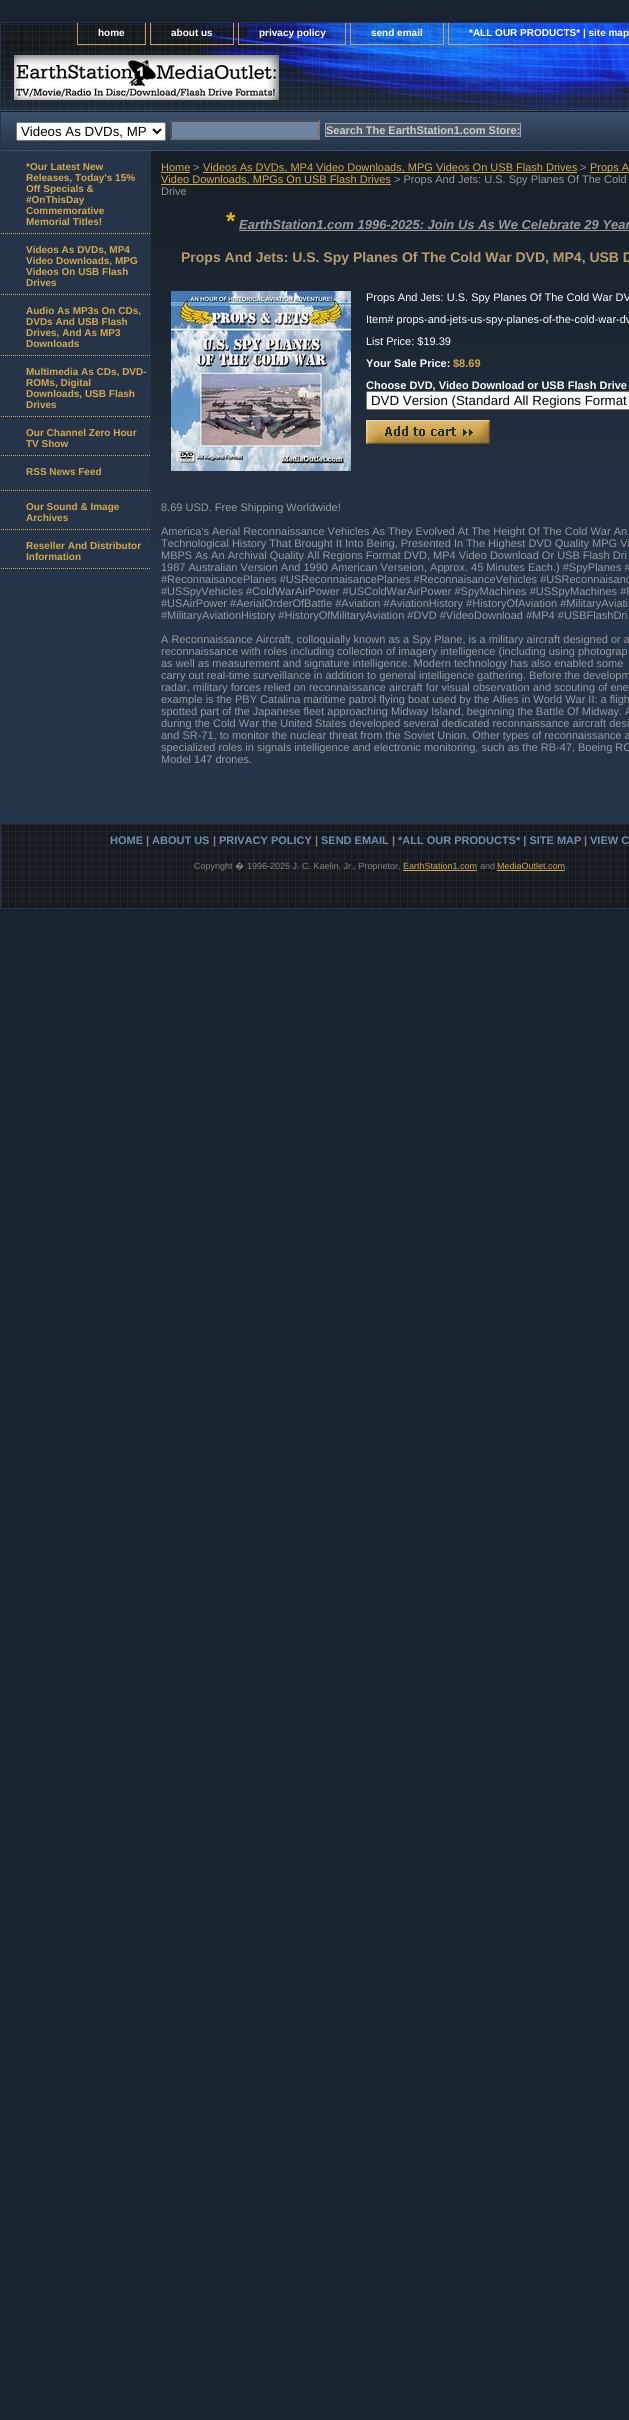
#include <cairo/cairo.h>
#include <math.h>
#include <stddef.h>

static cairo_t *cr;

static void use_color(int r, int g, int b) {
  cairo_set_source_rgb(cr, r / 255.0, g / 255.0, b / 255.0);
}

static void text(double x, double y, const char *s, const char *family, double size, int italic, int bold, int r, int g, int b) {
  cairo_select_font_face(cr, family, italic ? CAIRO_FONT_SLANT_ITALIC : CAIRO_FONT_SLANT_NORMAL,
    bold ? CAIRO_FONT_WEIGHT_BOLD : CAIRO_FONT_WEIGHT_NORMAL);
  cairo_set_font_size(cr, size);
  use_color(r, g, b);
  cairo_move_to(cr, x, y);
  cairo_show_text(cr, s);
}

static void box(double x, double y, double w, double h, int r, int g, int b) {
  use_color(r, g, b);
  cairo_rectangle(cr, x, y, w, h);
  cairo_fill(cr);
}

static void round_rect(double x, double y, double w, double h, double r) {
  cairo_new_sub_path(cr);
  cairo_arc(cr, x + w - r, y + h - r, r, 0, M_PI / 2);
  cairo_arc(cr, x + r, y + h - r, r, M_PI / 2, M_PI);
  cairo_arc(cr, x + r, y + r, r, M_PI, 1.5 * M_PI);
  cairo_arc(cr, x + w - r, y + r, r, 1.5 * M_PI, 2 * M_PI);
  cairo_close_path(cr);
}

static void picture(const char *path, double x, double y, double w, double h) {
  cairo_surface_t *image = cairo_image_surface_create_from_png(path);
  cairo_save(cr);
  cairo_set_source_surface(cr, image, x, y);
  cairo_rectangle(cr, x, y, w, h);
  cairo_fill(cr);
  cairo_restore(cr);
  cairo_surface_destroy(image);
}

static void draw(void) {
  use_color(25, 35, 48);
  cairo_paint(cr);
  box(1, 544, 628, 280, 37, 52, 72);
  picture("img_01.png", 151, 151, 478, 393);
  cairo_rectangle(cr, 0.5, 22.5, 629, 886);
  cairo_set_line_width(cr, 1);
  cairo_stroke(cr);
  picture("img_02.png", 1, 23, 628, 87);
  box(145, 23, 1, 22, 210, 157, 88);
  box(77, 44, 69, 1, 210, 157, 88);
  box(77, 23, 1, 22, 210, 157, 88);
  box(233, 23, 1, 22, 210, 157, 88);
  box(150, 44, 84, 1, 210, 157, 88);
  box(150, 23, 1, 22, 210, 157, 88);
  box(345, 23, 1, 22, 210, 157, 88);
  box(238, 44, 108, 1, 210, 157, 88);
  box(238, 23, 1, 22, 210, 157, 88);
  box(443, 23, 1, 22, 210, 157, 88);
  box(350, 44, 94, 1, 210, 157, 88);
  box(350, 23, 1, 22, 210, 157, 88);
  box(448, 44, 181, 1, 210, 157, 88);
  box(448, 23, 1, 22, 210, 157, 88);
  picture("img_03.png", 14, 55, 265, 45);
  picture("img_04.png", 1, 110, 628, 41);
  use_color(255, 255, 255);
  round_rect(16.5, 122.5, 149, 18, 1.5);
  cairo_fill_preserve(cr);
  use_color(118, 118, 118);
  cairo_stroke(cr);
  cairo_new_path(cr);
  cairo_move_to(cr, 153, 129);
  cairo_line_to(cr, 157, 133);
  cairo_line_to(cr, 161, 129);
  use_color(0, 0, 0);
  cairo_set_line_width(cr, 2);
  cairo_stroke(cr);
  box(170, 120, 150, 20, 109, 132, 162);
  use_color(79, 79, 79);
  cairo_new_path(cr);
  cairo_move_to(cr, 170, 120);
  cairo_line_to(cr, 320, 120);
  cairo_line_to(cr, 318, 122);
  cairo_line_to(cr, 172, 122);
  cairo_close_path(cr);
  cairo_fill(cr);
  use_color(118, 118, 118);
  cairo_new_path(cr);
  cairo_move_to(cr, 320, 120);
  cairo_line_to(cr, 320, 140);
  cairo_line_to(cr, 318, 138);
  cairo_line_to(cr, 318, 122);
  cairo_close_path(cr);
  cairo_fill(cr);
  cairo_new_path(cr);
  cairo_move_to(cr, 320, 140);
  cairo_line_to(cr, 170, 140);
  cairo_line_to(cr, 172, 138);
  cairo_line_to(cr, 318, 138);
  cairo_close_path(cr);
  cairo_fill(cr);
  use_color(79, 79, 79);
  cairo_new_path(cr);
  cairo_move_to(cr, 170, 140);
  cairo_line_to(cr, 170, 120);
  cairo_line_to(cr, 172, 122);
  cairo_line_to(cr, 172, 138);
  cairo_close_path(cr);
  cairo_fill(cr);
  use_color(75, 89, 103);
  cairo_rectangle(cr, 325.5, 123.5, 195, 13);
  cairo_fill_preserve(cr);
  use_color(156, 165, 178);
  cairo_set_line_width(cr, 1);
  cairo_stroke(cr);
  box(1, 151, 150, 393, 37, 52, 72);
  cairo_new_path(cr);
  cairo_move_to(cr, 1, 233.5);
  cairo_line_to(cr, 151, 233.5);
  use_color(212, 168, 75);
  cairo_set_dash(cr, (double[]){1, 1}, 2, 0);
  cairo_stroke(cr);
  cairo_new_path(cr);
  cairo_move_to(cr, 1, 294.5);
  cairo_line_to(cr, 151, 294.5);
  cairo_stroke(cr);
  cairo_new_path(cr);
  cairo_move_to(cr, 1, 355.5);
  cairo_line_to(cr, 151, 355.5);
  cairo_stroke(cr);
  cairo_new_path(cr);
  cairo_move_to(cr, 1, 416.5);
  cairo_line_to(cr, 151, 416.5);
  cairo_stroke(cr);
  cairo_new_path(cr);
  cairo_move_to(cr, 1, 455.5);
  cairo_line_to(cr, 151, 455.5);
  cairo_stroke(cr);
  cairo_new_path(cr);
  cairo_move_to(cr, 1, 490.5);
  cairo_line_to(cr, 151, 490.5);
  cairo_stroke(cr);
  cairo_new_path(cr);
  cairo_move_to(cr, 1, 529.5);
  cairo_line_to(cr, 151, 529.5);
  cairo_stroke(cr);
  cairo_new_path(cr);
  cairo_move_to(cr, 1, 568.5);
  cairo_line_to(cr, 151, 568.5);
  cairo_stroke(cr);
  box(161, 172, 29, 1, 212, 168, 75);
  box(203, 172, 374, 1, 212, 168, 75);
  box(590, 172, 39, 1, 212, 168, 75);
  box(161, 184, 230, 1, 212, 168, 75);
  box(239, 230, 390, 1, 151, 154, 158);
  picture("img_05.png", 171, 291, 180, 180);
  use_color(255, 255, 255);
  round_rect(366.5, 391.5, 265, 18, 1.5);
  cairo_fill_preserve(cr);
  use_color(118, 118, 118);
  cairo_set_dash(cr, NULL, 0, 0);
  cairo_stroke(cr);
  picture("img_06.png", 366, 420, 124, 24);
  picture("img_07.png", 1, 824, 628, 84);
  box(403, 870, 74, 1, 212, 168, 75);
  box(497, 870, 68, 1, 212, 168, 75);
  text(98, 36, "home", "Liberation Sans", 10, 0, 1, 255, 255, 255);
  text(171, 36, "about us", "Liberation Sans", 10, 0, 1, 255, 255, 255);
  text(259, 36, "privacy policy", "Liberation Sans", 10, 0, 1, 255, 255, 255);
  text(371, 36, "send email", "Liberation Sans", 10, 0, 1, 255, 255, 255);
  text(469, 36, "*ALL OUR PRODUCTS* | site map", "Liberation Sans", 10, 0, 1, 255, 255, 255);
  text(21, 136, "Videos As DVDs, MP", "Liberation Sans", 13.3, 0, 0, 0, 0, 0);
  text(326, 134, "Search The EarthStation1.com Store:", "Liberation Sans", 11, 0, 1, 202, 206, 211);
  text(26, 170, "*Our Latest New", "Liberation Sans", 10, 0, 1, 212, 168, 75);
  text(26, 181, "Releases, Today's 15%", "Liberation Sans", 10, 0, 1, 212, 168, 75);
  text(26, 192, "Off Specials &", "Liberation Sans", 10, 0, 1, 212, 168, 75);
  text(26, 203, "#OnThisDay", "Liberation Sans", 10, 0, 1, 212, 168, 75);
  text(26, 214, "Commemorative", "Liberation Sans", 10, 0, 1, 212, 168, 75);
  text(26, 225, "Memorial Titles!", "Liberation Sans", 10, 0, 1, 212, 168, 75);
  text(26, 253, "Videos As DVDs, MP4", "Liberation Sans", 10, 0, 1, 212, 168, 75);
  text(26, 264, "Video Downloads, MPG", "Liberation Sans", 10, 0, 1, 212, 168, 75);
  text(26, 275, "Videos On USB Flash", "Liberation Sans", 10, 0, 1, 212, 168, 75);
  text(26, 286, "Drives", "Liberation Sans", 10, 0, 1, 212, 168, 75);
  text(26, 314, "Audio As MP3s On CDs,", "Liberation Sans", 10, 0, 1, 212, 168, 75);
  text(26, 325, "DVDs And USB Flash", "Liberation Sans", 10, 0, 1, 212, 168, 75);
  text(26, 336, "Drives, And As MP3", "Liberation Sans", 10, 0, 1, 212, 168, 75);
  text(26, 347, "Downloads", "Liberation Sans", 10, 0, 1, 212, 168, 75);
  text(26, 375, "Multimedia As CDs, DVD-", "Liberation Sans", 10, 0, 1, 212, 168, 75);
  text(26, 386, "ROMs, Digital", "Liberation Sans", 10, 0, 1, 212, 168, 75);
  text(26, 397, "Downloads, USB Flash", "Liberation Sans", 10, 0, 1, 212, 168, 75);
  text(26, 408, "Drives", "Liberation Sans", 10, 0, 1, 212, 168, 75);
  text(26, 436, "Our Channel Zero Hour", "Liberation Sans", 10, 0, 1, 212, 168, 75);
  text(26, 447, "TV Show", "Liberation Sans", 10, 0, 1, 212, 168, 75);
  text(26, 475, "RSS News Feed", "Liberation Sans", 10, 0, 1, 212, 168, 75);
  text(26, 510, "Our Sound & Image", "Liberation Sans", 10, 0, 1, 212, 168, 75);
  text(26, 521, "Archives", "Liberation Sans", 10, 0, 1, 212, 168, 75);
  text(26, 549, "Reseller And Distributor", "Liberation Sans", 10, 0, 1, 212, 168, 75);
  text(26, 560, "Information", "Liberation Sans", 10, 0, 1, 212, 168, 75);
  text(161, 171, "Home", "Liberation Sans", 11, 0, 0, 212, 168, 75);
  text(193, 171, ">", "Liberation Sans", 11, 0, 0, 151, 154, 158);
  text(203, 171, "Videos As DVDs, MP4 Video Downloads, MPG Videos On USB Flash Drives", "Liberation Sans", 11, 0, 0, 212, 168, 75);
  text(580, 171, ">", "Liberation Sans", 11, 0, 0, 151, 154, 158);
  text(590, 171, "Props A", "Liberation Sans", 11, 0, 0, 212, 168, 75);
  text(161, 183, "Video Downloads, MPGs On USB Flash Drives", "Liberation Sans", 11, 0, 0, 212, 168, 75);
  text(394, 183, "> Props And Jets: U.S. Spy Planes Of The Cold", "Liberation Sans", 11, 0, 0, 151, 154, 158);
  text(161, 195, "Drive", "Liberation Sans", 11, 0, 0, 151, 154, 158);
  text(226, 229, "*", "Liberation Sans", 24, 0, 1, 237, 177, 26);
  text(239, 229, "EarthStation1.com 1996-2025: Join Us As We Celebrate 29 Year", "Liberation Sans", 13, 1, 1, 151, 154, 158);
  text(181, 262, "Props And Jets: U.S. Spy Planes Of The Cold War DVD, MP4, USB D", "Liberation Sans", 14, 0, 1, 176, 160, 113);
  text(366, 301, "Props And Jets: U.S. Spy Planes Of The Cold War DV", "Liberation Sans", 11, 0, 0, 255, 255, 255);
  text(366, 323, "Item# props-and-jets-us-spy-planes-of-the-cold-war-dv", "Liberation Sans", 11, 0, 0, 255, 255, 255);
  text(366, 345, "List Price: $19.39", "Liberation Sans", 11, 0, 0, 255, 255, 255);
  text(366, 367, "Your Sale Price:", "Liberation Sans", 11, 0, 1, 255, 255, 255);
  text(453, 367, "$8.69", "Liberation Sans", 11, 0, 1, 212, 168, 75);
  text(366, 389, "Choose DVD, Video Download or USB Flash Drive", "Liberation Sans", 11, 0, 1, 255, 255, 255);
  text(371, 405, "DVD Version (Standard All Regions Format", "Liberation Sans", 13.3, 0, 0, 0, 0, 0);
  text(161, 511, "8.69 USD. Free Shipping Worldwide!", "Liberation Sans", 11, 0, 0, 151, 154, 158);
  text(161, 535, "America's Aerial Reconnaissance Vehicles As They Evolved At The Height Of The Cold War An", "Liberation Sans", 11, 0, 0, 151, 154, 158);
  text(161, 547, "Technological History That Brought It Into Being, Presented In The Highest DVD Quality MPG Vi", "Liberation Sans", 11, 0, 0, 151, 154, 158);
  text(161, 559, "MBPS As An Archival Quality All Regions Format DVD, MP4 Video Download Or USB Flash Dri", "Liberation Sans", 11, 0, 0, 151, 154, 158);
  text(161, 571, "1987 Australian Version And 1990 American Verseion, Approx. 45 Minutes Each.) #SpyPlanes #", "Liberation Sans", 11, 0, 0, 151, 154, 158);
  text(161, 583, "#ReconnaisancePlanes #USReconnaisancePlanes #ReconnaisanceVehicles #USReconnaisanc", "Liberation Sans", 11, 0, 0, 151, 154, 158);
  text(161, 595, "#USSpyVehicles #ColdWarAirPower #USColdWarAirPower #SpyMachines #USSpyMachines #P", "Liberation Sans", 11, 0, 0, 151, 154, 158);
  text(161, 607, "#USAirPower #AerialOrderOfBattle #Aviation #AviationHistory #HistoryOfAviation #MilitaryAviati", "Liberation Sans", 11, 0, 0, 151, 154, 158);
  text(161, 619, "#MilitaryAviationHistory #HistoryOfMilitaryAviation #DVD #VideoDownload #MP4 #USBFlashDri", "Liberation Sans", 11, 0, 0, 151, 154, 158);
  text(161, 643, "A Reconnaissance Aircraft, colloquially known as a Spy Plane, is a military aircraft designed or a", "Liberation Sans", 11, 0, 0, 151, 154, 158);
  text(161, 655, "reconnaissance with roles including collection of imagery intelligence (including using photograp", "Liberation Sans", 11, 0, 0, 151, 154, 158);
  text(161, 667, "as well as measurement and signature intelligence. Modern technology has also enabled some", "Liberation Sans", 11, 0, 0, 151, 154, 158);
  text(161, 679, "carry out real-time surveillance in addition to general intelligence gathering. Before the developm", "Liberation Sans", 11, 0, 0, 151, 154, 158);
  text(161, 691, "radar, military forces relied on reconnaissance aircraft for visual observation and scouting of ene", "Liberation Sans", 11, 0, 0, 151, 154, 158);
  text(161, 703, "example is the PBY Catalina maritime patrol flying boat used by the Allies in World War II: a fligh", "Liberation Sans", 11, 0, 0, 151, 154, 158);
  text(161, 715, "spotted part of the Japanese fleet approaching Midway Island, beginning the Battle Of Midway. A", "Liberation Sans", 11, 0, 0, 151, 154, 158);
  text(161, 727, "during the Cold War the United States developed several dedicated reconnaissance aircraft desi", "Liberation Sans", 11, 0, 0, 151, 154, 158);
  text(161, 739, "and SR-71, to monitor the nuclear threat from the Soviet Union. Other types of reconnaissance a", "Liberation Sans", 11, 0, 0, 151, 154, 158);
  text(161, 751, "specialized roles in signals intelligence and electronic monitoring, such as the RB-47, Boeing RC", "Liberation Sans", 11, 0, 0, 151, 154, 158);
  text(161, 763, "Model 147 drones.", "Liberation Sans", 11, 0, 0, 151, 154, 158);
  text(110, 844, "HOME", "Liberation Sans", 11, 0, 1, 110, 142, 186);
  text(146, 844, "|", "Liberation Sans", 11, 0, 1, 131, 131, 132);
  text(152, 844, "ABOUT US", "Liberation Sans", 11, 0, 1, 110, 142, 186);
  text(213, 844, "|", "Liberation Sans", 11, 0, 1, 131, 131, 132);
  text(219, 844, "PRIVACY POLICY", "Liberation Sans", 11, 0, 1, 110, 142, 186);
  text(315, 844, "|", "Liberation Sans", 11, 0, 1, 131, 131, 132);
  text(321, 844, "SEND EMAIL", "Liberation Sans", 11, 0, 1, 110, 142, 186);
  text(392, 844, "|", "Liberation Sans", 11, 0, 1, 131, 131, 132);
  text(398, 844, "*ALL OUR PRODUCTS* | SITE MAP", "Liberation Sans", 11, 0, 1, 110, 142, 186);
  text(584, 844, "|", "Liberation Sans", 11, 0, 1, 131, 131, 132);
  text(590, 844, "VIEW C", "Liberation Sans", 11, 0, 1, 110, 142, 186);
  text(194, 869, "Copyright", "Liberation Sans", 9, 0, 0, 131, 131, 132);
  text(235, 869, "�", "Noto Sans", 9, 0, 0, 131, 131, 132);
  text(247, 869, "1996-2025 J. C. Kaelin, Jr., Proprietor,", "Liberation Sans", 9, 0, 0, 131, 131, 132);
  text(403, 869, "EarthStation1.com", "Liberation Sans", 9, 0, 0, 212, 168, 75);
  text(480, 869, "and", "Liberation Sans", 9, 0, 0, 131, 131, 132);
  text(497, 869, "MediaOutlet.com", "Liberation Sans", 9, 0, 0, 212, 168, 75);
  text(565, 869, ".", "Liberation Sans", 9, 0, 0, 131, 131, 132);
}

int main(void) {
  cairo_surface_t *surface = cairo_image_surface_create(CAIRO_FORMAT_RGB24, 629, 2420);
  cr = cairo_create(surface);
  cairo_font_options_t *options = cairo_font_options_create();
  cairo_font_options_set_hint_metrics(options, CAIRO_HINT_METRICS_OFF);
  cairo_font_options_set_hint_style(options, CAIRO_HINT_STYLE_NONE);
  cairo_set_font_options(cr, options);
  cairo_set_miter_limit(cr, 4);
  draw();
  cairo_surface_write_to_png(surface, "out.png");
  cairo_font_options_destroy(options);
  cairo_destroy(cr);
  cairo_surface_destroy(surface);
  return 0;
}
